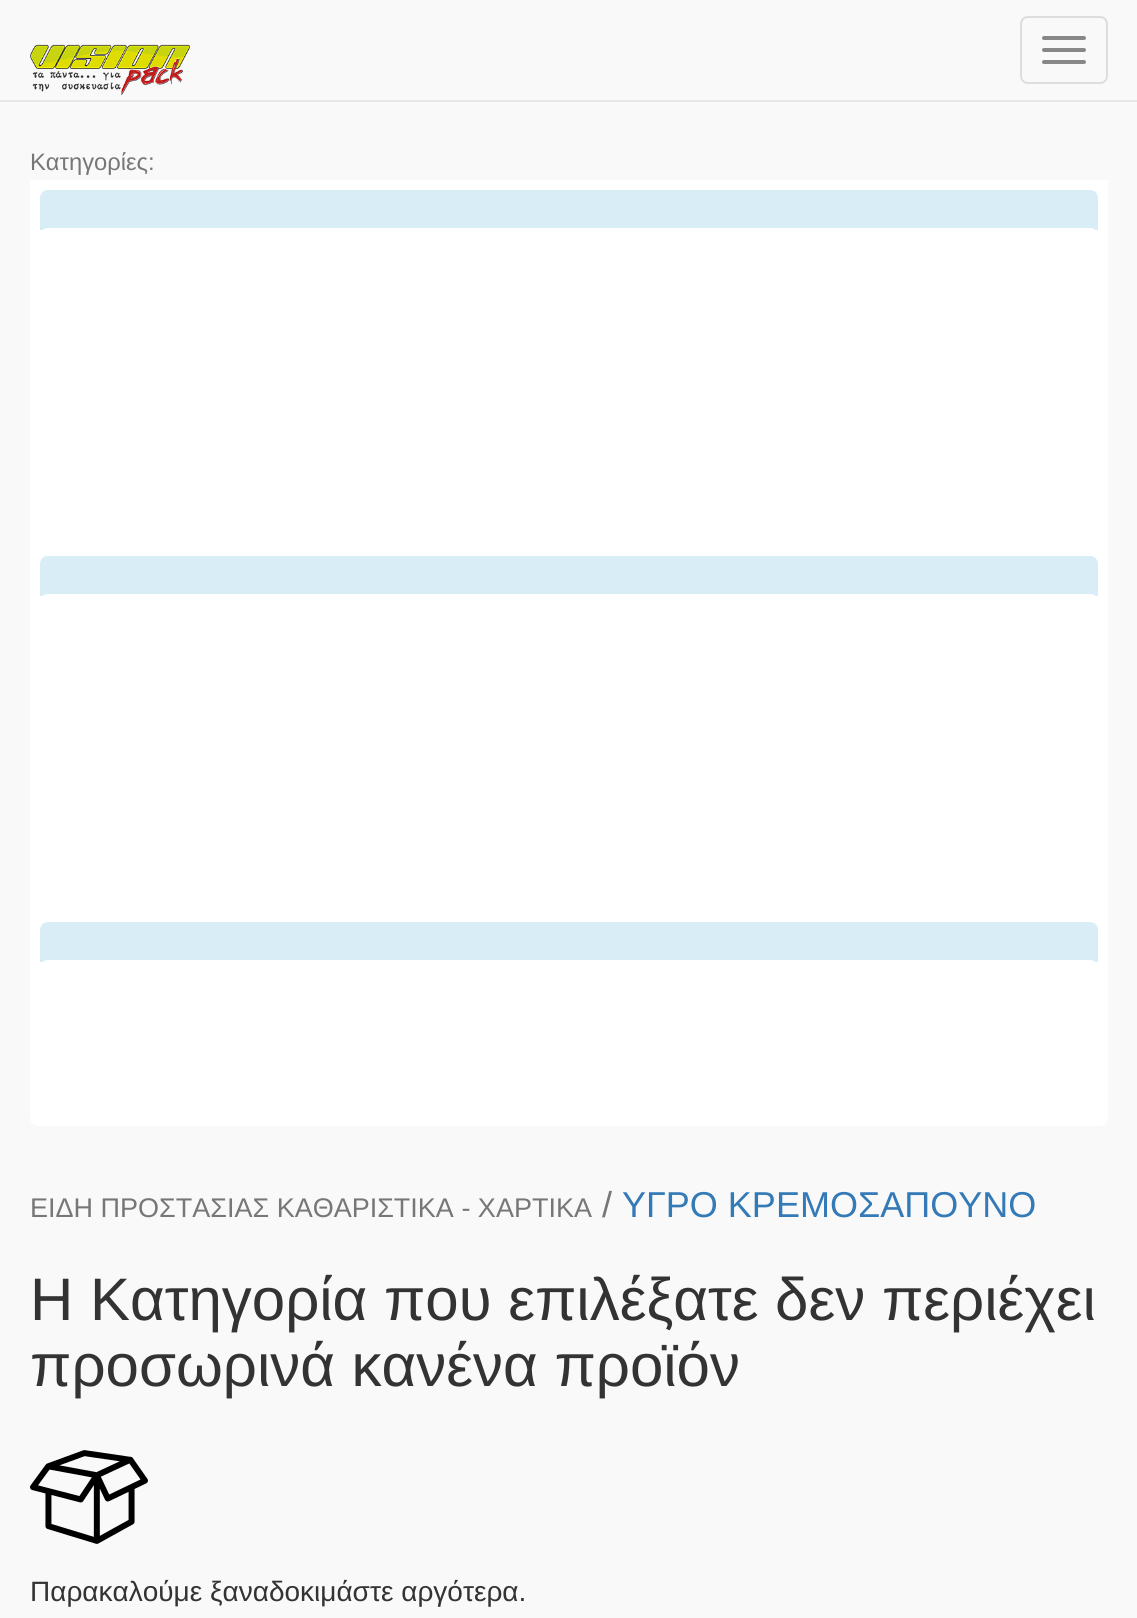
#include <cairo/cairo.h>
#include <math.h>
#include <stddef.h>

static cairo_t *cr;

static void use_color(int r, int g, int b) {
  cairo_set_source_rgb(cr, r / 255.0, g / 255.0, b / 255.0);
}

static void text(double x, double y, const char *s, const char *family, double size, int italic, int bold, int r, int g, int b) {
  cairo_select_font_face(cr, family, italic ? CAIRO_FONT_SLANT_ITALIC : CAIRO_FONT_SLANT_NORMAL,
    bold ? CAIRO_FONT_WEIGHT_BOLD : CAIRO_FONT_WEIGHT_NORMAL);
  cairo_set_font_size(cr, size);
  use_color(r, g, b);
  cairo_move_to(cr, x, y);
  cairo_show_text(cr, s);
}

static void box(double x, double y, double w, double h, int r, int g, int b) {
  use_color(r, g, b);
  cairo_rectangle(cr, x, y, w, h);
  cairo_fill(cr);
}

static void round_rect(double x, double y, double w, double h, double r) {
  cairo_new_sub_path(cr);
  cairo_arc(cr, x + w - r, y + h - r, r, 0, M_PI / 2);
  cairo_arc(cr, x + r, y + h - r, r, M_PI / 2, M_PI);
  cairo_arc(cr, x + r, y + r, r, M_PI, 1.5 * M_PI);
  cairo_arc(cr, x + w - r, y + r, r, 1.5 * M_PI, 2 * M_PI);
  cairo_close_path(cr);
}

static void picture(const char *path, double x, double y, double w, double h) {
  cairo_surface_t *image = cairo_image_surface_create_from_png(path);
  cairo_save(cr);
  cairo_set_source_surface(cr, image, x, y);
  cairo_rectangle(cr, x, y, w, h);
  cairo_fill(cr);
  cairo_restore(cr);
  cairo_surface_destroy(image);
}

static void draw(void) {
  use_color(249, 249, 249);
  cairo_paint(cr);
  box(0, 100, 1137, 2, 231, 231, 231);
  picture("img_01.png", 30, 44, 160, 52);
  round_rect(1021, 17, 86, 66, 7);
  use_color(221, 221, 221);
  cairo_stroke(cr);
  use_color(136, 136, 136);
  round_rect(1042, 36, 44, 4, 2);
  cairo_fill(cr);
  round_rect(1042, 48, 44, 4, 2);
  cairo_fill(cr);
  round_rect(1042, 60, 44, 4, 2);
  cairo_fill(cr);
  box(30, 180, 1078, 732, 255, 255, 255);
  use_color(217, 237, 247);
  cairo_new_path(cr);
  cairo_move_to(cr, 48, 190);
  cairo_line_to(cr, 1090, 190);
  cairo_curve_to(cr, 1094.5, 190, 1098, 193.5, 1098, 198);
  cairo_line_to(cr, 1098, 230);
  cairo_line_to(cr, 40, 230);
  cairo_line_to(cr, 40, 198);
  cairo_curve_to(cr, 40, 193.5, 43.5, 190, 48, 190);
  cairo_close_path(cr);
  cairo_fill(cr);
  use_color(255, 255, 255);
  cairo_new_path(cr);
  cairo_move_to(cr, 48, 228);
  cairo_line_to(cr, 1090, 228);
  cairo_curve_to(cr, 1094.5, 228, 1098, 231.5, 1098, 236);
  cairo_line_to(cr, 1098, 268);
  cairo_line_to(cr, 40, 268);
  cairo_line_to(cr, 40, 236);
  cairo_curve_to(cr, 40, 231.5, 43.5, 228, 48, 228);
  cairo_close_path(cr);
  cairo_fill(cr);
  use_color(217, 237, 247);
  cairo_new_path(cr);
  cairo_move_to(cr, 48, 556);
  cairo_line_to(cr, 1090, 556);
  cairo_curve_to(cr, 1094.5, 556, 1098, 559.5, 1098, 564);
  cairo_line_to(cr, 1098, 596);
  cairo_line_to(cr, 40, 596);
  cairo_line_to(cr, 40, 564);
  cairo_curve_to(cr, 40, 559.5, 43.5, 556, 48, 556);
  cairo_close_path(cr);
  cairo_fill(cr);
  use_color(255, 255, 255);
  cairo_new_path(cr);
  cairo_move_to(cr, 48, 594);
  cairo_line_to(cr, 1090, 594);
  cairo_curve_to(cr, 1094.5, 594, 1098, 597.5, 1098, 602);
  cairo_line_to(cr, 1098, 634);
  cairo_line_to(cr, 40, 634);
  cairo_line_to(cr, 40, 602);
  cairo_curve_to(cr, 40, 597.5, 43.5, 594, 48, 594);
  cairo_close_path(cr);
  cairo_fill(cr);
  cairo_new_path(cr);
  cairo_move_to(cr, 30, 912);
  cairo_line_to(cr, 1108, 912);
  cairo_line_to(cr, 1108, 1118);
  cairo_curve_to(cr, 1108, 1122.5, 1104.5, 1126, 1100, 1126);
  cairo_line_to(cr, 38, 1126);
  cairo_curve_to(cr, 33.5, 1126, 30, 1122.5, 30, 1118);
  cairo_close_path(cr);
  cairo_fill(cr);
  use_color(217, 237, 247);
  cairo_new_path(cr);
  cairo_move_to(cr, 48, 922);
  cairo_line_to(cr, 1090, 922);
  cairo_curve_to(cr, 1094.5, 922, 1098, 925.5, 1098, 930);
  cairo_line_to(cr, 1098, 962);
  cairo_line_to(cr, 40, 962);
  cairo_line_to(cr, 40, 930);
  cairo_curve_to(cr, 40, 925.5, 43.5, 922, 48, 922);
  cairo_close_path(cr);
  cairo_fill(cr);
  use_color(255, 255, 255);
  cairo_new_path(cr);
  cairo_move_to(cr, 48, 960);
  cairo_line_to(cr, 1090, 960);
  cairo_curve_to(cr, 1094.5, 960, 1098, 963.5, 1098, 968);
  cairo_line_to(cr, 1098, 1000);
  cairo_line_to(cr, 40, 1000);
  cairo_line_to(cr, 40, 968);
  cairo_curve_to(cr, 40, 963.5, 43.5, 960, 48, 960);
  cairo_close_path(cr);
  cairo_fill(cr);
  picture("img_02.png", 30, 1450, 118, 94);
  text(30, 170, "Κατηγορίες:", "Liberation Sans", 23.75, 0, 0, 119, 119, 119);
  text(30, 1217, "ΕΙΔΗ ΠΡΟΣΤΑΣΙΑΣ ΚΑΘΑΡΙΣΤΙΚΑ - ΧΑΡΤΙΚΑ", "Liberation Sans", 27, 0, 0, 119, 119, 119);
  text(602, 1217, "/", "Liberation Sans", 36, 0, 0, 119, 119, 119);
  text(622, 1217, "ΥΓΡΟ ΚΡΕΜΟΣΑΠΟΥΝΟ", "Liberation Sans", 36, 0, 0, 51, 122, 183);
  text(30, 1320, "Η Κατηγορία που επιλέξατε δεν περιέχει", "Liberation Sans", 60, 0, 0, 51, 51, 51);
  text(30, 1386, "προσωρινά κανένα προϊόν", "Liberation Sans", 60, 0, 0, 51, 51, 51);
  text(30, 1601, "Παρακαλούμε ξαναδοκιμάστε αργότερα.", "Liberation Sans", 28, 0, 0, 51, 51, 51);
}

int main(void) {
  cairo_surface_t *surface = cairo_image_surface_create(CAIRO_FORMAT_RGB24, 1137, 1618);
  cr = cairo_create(surface);
  cairo_font_options_t *options = cairo_font_options_create();
  cairo_font_options_set_hint_metrics(options, CAIRO_HINT_METRICS_OFF);
  cairo_font_options_set_hint_style(options, CAIRO_HINT_STYLE_NONE);
  cairo_set_font_options(cr, options);
  cairo_set_miter_limit(cr, 4);
  draw();
  cairo_surface_write_to_png(surface, "out.png");
  cairo_font_options_destroy(options);
  cairo_destroy(cr);
  cairo_surface_destroy(surface);
  return 0;
}
